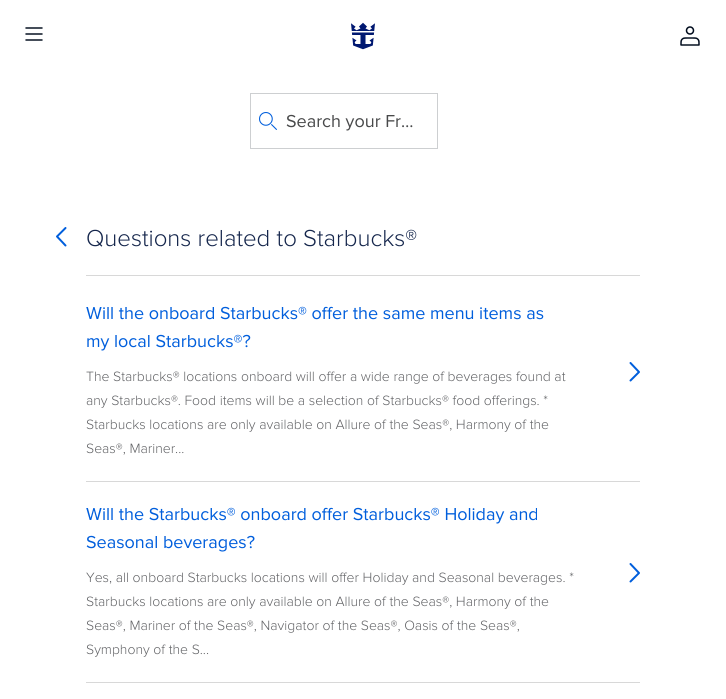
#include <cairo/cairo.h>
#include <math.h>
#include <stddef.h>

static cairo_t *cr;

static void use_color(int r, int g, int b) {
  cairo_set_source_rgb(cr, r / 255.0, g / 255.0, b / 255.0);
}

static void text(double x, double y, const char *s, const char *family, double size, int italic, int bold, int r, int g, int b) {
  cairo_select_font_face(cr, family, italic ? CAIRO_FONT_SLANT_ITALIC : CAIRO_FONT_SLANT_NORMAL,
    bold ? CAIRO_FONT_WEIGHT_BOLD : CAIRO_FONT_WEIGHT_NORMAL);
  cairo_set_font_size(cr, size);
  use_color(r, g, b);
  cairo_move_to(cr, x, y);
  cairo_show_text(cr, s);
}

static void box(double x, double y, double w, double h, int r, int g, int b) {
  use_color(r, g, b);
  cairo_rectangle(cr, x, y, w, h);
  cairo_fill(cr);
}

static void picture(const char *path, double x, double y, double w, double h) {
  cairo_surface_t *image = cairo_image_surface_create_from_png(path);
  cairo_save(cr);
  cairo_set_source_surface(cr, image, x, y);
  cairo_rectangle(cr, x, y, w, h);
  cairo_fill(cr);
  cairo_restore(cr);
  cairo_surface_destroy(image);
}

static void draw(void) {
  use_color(255, 255, 255);
  cairo_paint(cr);
  picture("img_01.png", 25, 27, 18, 14);
  picture("img_02.png", 351, 22, 24, 28);
  picture("img_03.png", 680, 26, 20, 20);
  cairo_rectangle(cr, 250.5, 93.5, 187, 55);
  use_color(205, 207, 209);
  cairo_set_line_width(cr, 1);
  cairo_stroke(cr);
  picture("img_04.png", 259, 112, 18, 18);
  cairo_new_path(cr);
  cairo_move_to(cr, 65.5, 228);
  cairo_line_to(cr, 57, 236.5);
  cairo_line_to(cr, 65.5, 245.5);
  use_color(0, 94, 220);
  cairo_set_line_width(cr, 2);
  cairo_set_line_cap(cr, CAIRO_LINE_CAP_ROUND);
  cairo_set_line_join(cr, CAIRO_LINE_JOIN_ROUND);
  cairo_stroke(cr);
  box(86, 275, 554, 1, 216, 216, 216);
  box(86, 481, 554, 1, 216, 216, 216);
  cairo_new_path(cr);
  cairo_move_to(cr, 630.5, 380.5);
  cairo_line_to(cr, 639, 372);
  cairo_line_to(cr, 630.5, 363);
  use_color(0, 94, 220);
  cairo_stroke(cr);
  box(86, 682, 554, 1, 216, 216, 216);
  cairo_new_path(cr);
  cairo_move_to(cr, 630.5, 581.5);
  cairo_line_to(cr, 639, 573);
  cairo_line_to(cr, 630.5, 564);
  use_color(0, 94, 220);
  cairo_stroke(cr);
  text(286, 127, "Search your Fr…", "Proxima Nova", 18, 0, 0, 72, 73, 74);
  text(86, 246, "Questions related to Starbucks®", "Proxima Nova Light", 24, 0, 0, 21, 38, 76);
  text(86, 319, "Will the onboard Starbucks® offer the same menu items as", "Proxima Nova", 18, 0, 0, 0, 94, 220);
  text(86, 347, "my local Starbucks®?", "Proxima Nova", 18, 0, 0, 0, 94, 220);
  text(86, 381, "The Starbucks® locations onboard will offer a wide range of beverages found at", "Proxima Nova Light", 14, 0, 0, 98, 99, 102);
  text(86, 405, "any Starbucks®. Food items will be a selection of Starbucks® food offerings. *", "Proxima Nova Light", 14, 0, 0, 98, 99, 102);
  text(86, 429, "Starbucks locations are only available on Allure of the Seas®, Harmony of the", "Proxima Nova Light", 14, 0, 0, 98, 99, 102);
  text(86, 453, "Seas®, Mariner...", "Proxima Nova Light", 14, 0, 0, 98, 99, 102);
  text(86, 520, "Will the Starbucks® onboard offer Starbucks® Holiday and", "Proxima Nova", 18, 0, 0, 0, 94, 220);
  text(86, 548, "Seasonal beverages?", "Proxima Nova", 18, 0, 0, 0, 94, 220);
  text(86, 582, "Yes, all onboard Starbucks locations will offer Holiday and Seasonal beverages. *", "Proxima Nova Light", 14, 0, 0, 98, 99, 102);
  text(86, 606, "Starbucks locations are only available on Allure of the Seas®, Harmony of the", "Proxima Nova Light", 14, 0, 0, 98, 99, 102);
  text(86, 630, "Seas®, Mariner of the Seas®, Navigator of the Seas®, Oasis of the Seas®,", "Proxima Nova Light", 14, 0, 0, 98, 99, 102);
  text(86, 654, "Symphony of the S...", "Proxima Nova Light", 14, 0, 0, 98, 99, 102);
}

int main(void) {
  cairo_surface_t *surface = cairo_image_surface_create(CAIRO_FORMAT_RGB24, 726, 699);
  cr = cairo_create(surface);
  cairo_font_options_t *options = cairo_font_options_create();
  cairo_font_options_set_hint_metrics(options, CAIRO_HINT_METRICS_OFF);
  cairo_font_options_set_hint_style(options, CAIRO_HINT_STYLE_NONE);
  cairo_set_font_options(cr, options);
  cairo_set_miter_limit(cr, 4);
  draw();
  cairo_surface_write_to_png(surface, "out.png");
  cairo_font_options_destroy(options);
  cairo_destroy(cr);
  cairo_surface_destroy(surface);
  return 0;
}
